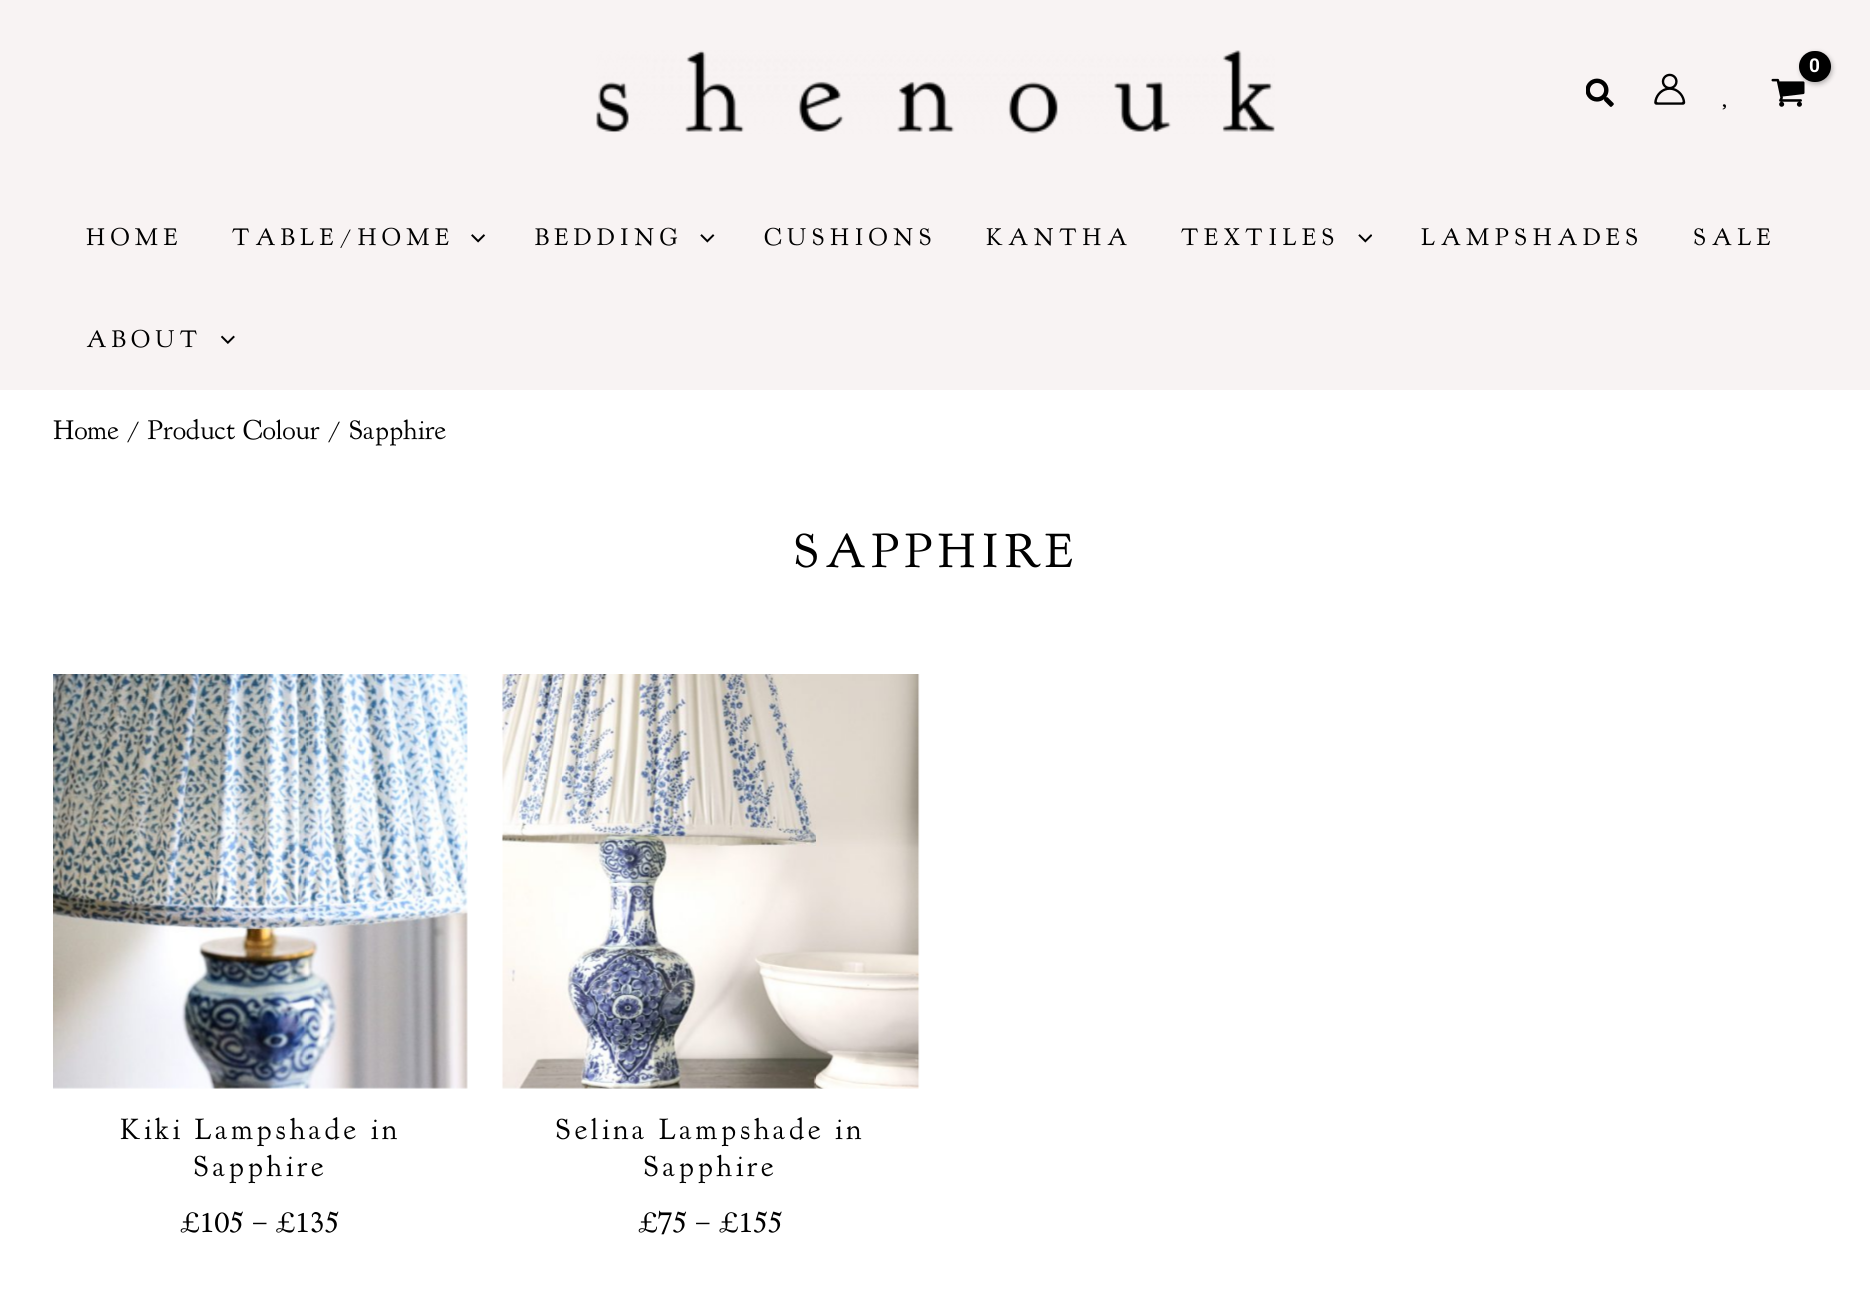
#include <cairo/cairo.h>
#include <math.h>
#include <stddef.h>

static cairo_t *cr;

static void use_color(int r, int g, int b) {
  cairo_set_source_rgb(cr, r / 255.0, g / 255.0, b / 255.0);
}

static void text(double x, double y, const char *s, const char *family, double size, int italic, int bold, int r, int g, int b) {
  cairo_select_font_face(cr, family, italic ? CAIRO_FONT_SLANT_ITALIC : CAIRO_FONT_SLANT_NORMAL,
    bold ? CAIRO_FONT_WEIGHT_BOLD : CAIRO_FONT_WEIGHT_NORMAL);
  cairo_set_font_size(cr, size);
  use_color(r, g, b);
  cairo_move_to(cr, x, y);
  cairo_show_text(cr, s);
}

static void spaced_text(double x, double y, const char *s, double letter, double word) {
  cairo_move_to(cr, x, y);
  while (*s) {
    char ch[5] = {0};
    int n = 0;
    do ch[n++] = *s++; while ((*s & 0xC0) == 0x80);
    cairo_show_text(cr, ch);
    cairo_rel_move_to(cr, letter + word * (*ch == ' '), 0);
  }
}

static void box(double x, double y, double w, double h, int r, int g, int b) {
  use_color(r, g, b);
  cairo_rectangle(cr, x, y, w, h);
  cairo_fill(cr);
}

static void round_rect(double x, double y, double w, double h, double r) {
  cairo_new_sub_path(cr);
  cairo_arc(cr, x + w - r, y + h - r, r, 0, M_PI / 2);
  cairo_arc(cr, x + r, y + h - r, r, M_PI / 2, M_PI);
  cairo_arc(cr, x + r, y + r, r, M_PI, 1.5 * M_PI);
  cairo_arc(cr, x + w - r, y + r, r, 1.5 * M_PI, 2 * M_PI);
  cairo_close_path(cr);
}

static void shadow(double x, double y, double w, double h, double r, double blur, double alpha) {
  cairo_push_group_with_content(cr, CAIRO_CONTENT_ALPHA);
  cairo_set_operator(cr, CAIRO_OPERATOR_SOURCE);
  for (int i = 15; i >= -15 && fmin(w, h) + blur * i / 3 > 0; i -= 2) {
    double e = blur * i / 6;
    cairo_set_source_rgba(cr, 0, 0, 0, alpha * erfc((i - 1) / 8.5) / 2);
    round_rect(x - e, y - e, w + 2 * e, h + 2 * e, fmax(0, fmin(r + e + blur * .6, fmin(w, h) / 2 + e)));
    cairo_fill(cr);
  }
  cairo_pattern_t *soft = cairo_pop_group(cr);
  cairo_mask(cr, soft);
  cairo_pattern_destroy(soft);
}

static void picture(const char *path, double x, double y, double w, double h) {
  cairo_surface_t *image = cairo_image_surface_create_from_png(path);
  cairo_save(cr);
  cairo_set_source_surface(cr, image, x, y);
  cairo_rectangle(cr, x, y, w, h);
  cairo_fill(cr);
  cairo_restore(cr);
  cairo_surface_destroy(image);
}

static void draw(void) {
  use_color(255, 255, 255);
  cairo_paint(cr);
  box(0, 0, 1870, 390, 248, 243, 243);
  picture("img_01.png", 596, 50, 679, 84);
  picture("img_02.png", 1771, 78, 34, 29);
  use_color(0, 0, 0);
  shadow(1801, 53, 31, 31, 15.5, 2.5, 0.3);
  use_color(0, 0, 0);
  round_rect(1799, 51, 32, 31, 15.5);
  cairo_fill(cr);
  picture("img_03.png", 1586, 78, 28, 29);
  picture("img_04.png", 1654, 73, 32, 32);
  picture("img_05.png", 1722, 104, 4, 6);
  picture("img_06.png", 471, 234, 15, 9);
  picture("img_07.png", 700, 234, 15, 9);
  picture("img_08.png", 1358, 234, 14, 9);
  picture("img_09.png", 221, 335, 14, 9);
  picture("img_10.png", 53, 674, 415, 415);
  picture("img_11.png", 501, 674, 419, 415);
  cairo_select_font_face(cr, "Roboto", CAIRO_FONT_SLANT_NORMAL, CAIRO_FONT_WEIGHT_BOLD);
  cairo_set_font_size(cr, 19);
  use_color(255, 255, 255);
  spaced_text(1809, 72, "0", -1, 0);
  cairo_select_font_face(cr, "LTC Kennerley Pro", CAIRO_FONT_SLANT_NORMAL, CAIRO_FONT_WEIGHT_NORMAL);
  cairo_set_font_size(cr, 24.5);
  use_color(0, 0, 0);
  spaced_text(86, 245, "HOME", 5.25, 0);
  spaced_text(232, 245, "TABLE/HOME", 5.25, 0);
  spaced_text(535, 245, "BEDDING", 5.25, 0);
  spaced_text(764, 245, "CUSHIONS", 5.25, 0);
  spaced_text(986, 245, "KANTHA", 5.25, 0);
  spaced_text(1181, 245, "TEXTILES", 5.25, 0);
  spaced_text(1421, 245, "LAMPSHADES", 5.25, 0);
  spaced_text(1693, 245, "SALE", 5.25, 0);
  spaced_text(86, 347, "ABOUT", 5.25, 0);
  text(53, 439, "Home / Product Colour / Sapphire", "LTC Kennerley Pro", 27.4, 0, 0, 0, 0, 0);
  cairo_set_font_size(cr, 49);
  spaced_text(793, 567, "SAPPHIRE", 5.25, 0);
  cairo_set_font_size(cr, 29.75);
  spaced_text(120, 1139, "Kiki Lampshade in", 3.5, 0);
  spaced_text(193, 1176, "Sapphire", 3.5, 0);
  text(180, 1232, "£105 – £135", "LTC Kennerley Pro", 31.5, 0, 0, 0, 0, 0);
  cairo_set_font_size(cr, 29.75);
  spaced_text(555, 1139, "Selina Lampshade in", 3.5, 0);
  spaced_text(643, 1176, "Sapphire", 3.5, 0);
  text(638, 1232, "£75 – £155", "LTC Kennerley Pro", 31.5, 0, 0, 0, 0, 0);
}

int main(void) {
  cairo_surface_t *surface = cairo_image_surface_create(CAIRO_FORMAT_RGB24, 1870, 1301);
  cr = cairo_create(surface);
  cairo_font_options_t *options = cairo_font_options_create();
  cairo_font_options_set_hint_metrics(options, CAIRO_HINT_METRICS_OFF);
  cairo_font_options_set_hint_style(options, CAIRO_HINT_STYLE_NONE);
  cairo_set_font_options(cr, options);
  cairo_set_miter_limit(cr, 4);
  draw();
  cairo_surface_write_to_png(surface, "out.png");
  cairo_font_options_destroy(options);
  cairo_destroy(cr);
  cairo_surface_destroy(surface);
  return 0;
}
